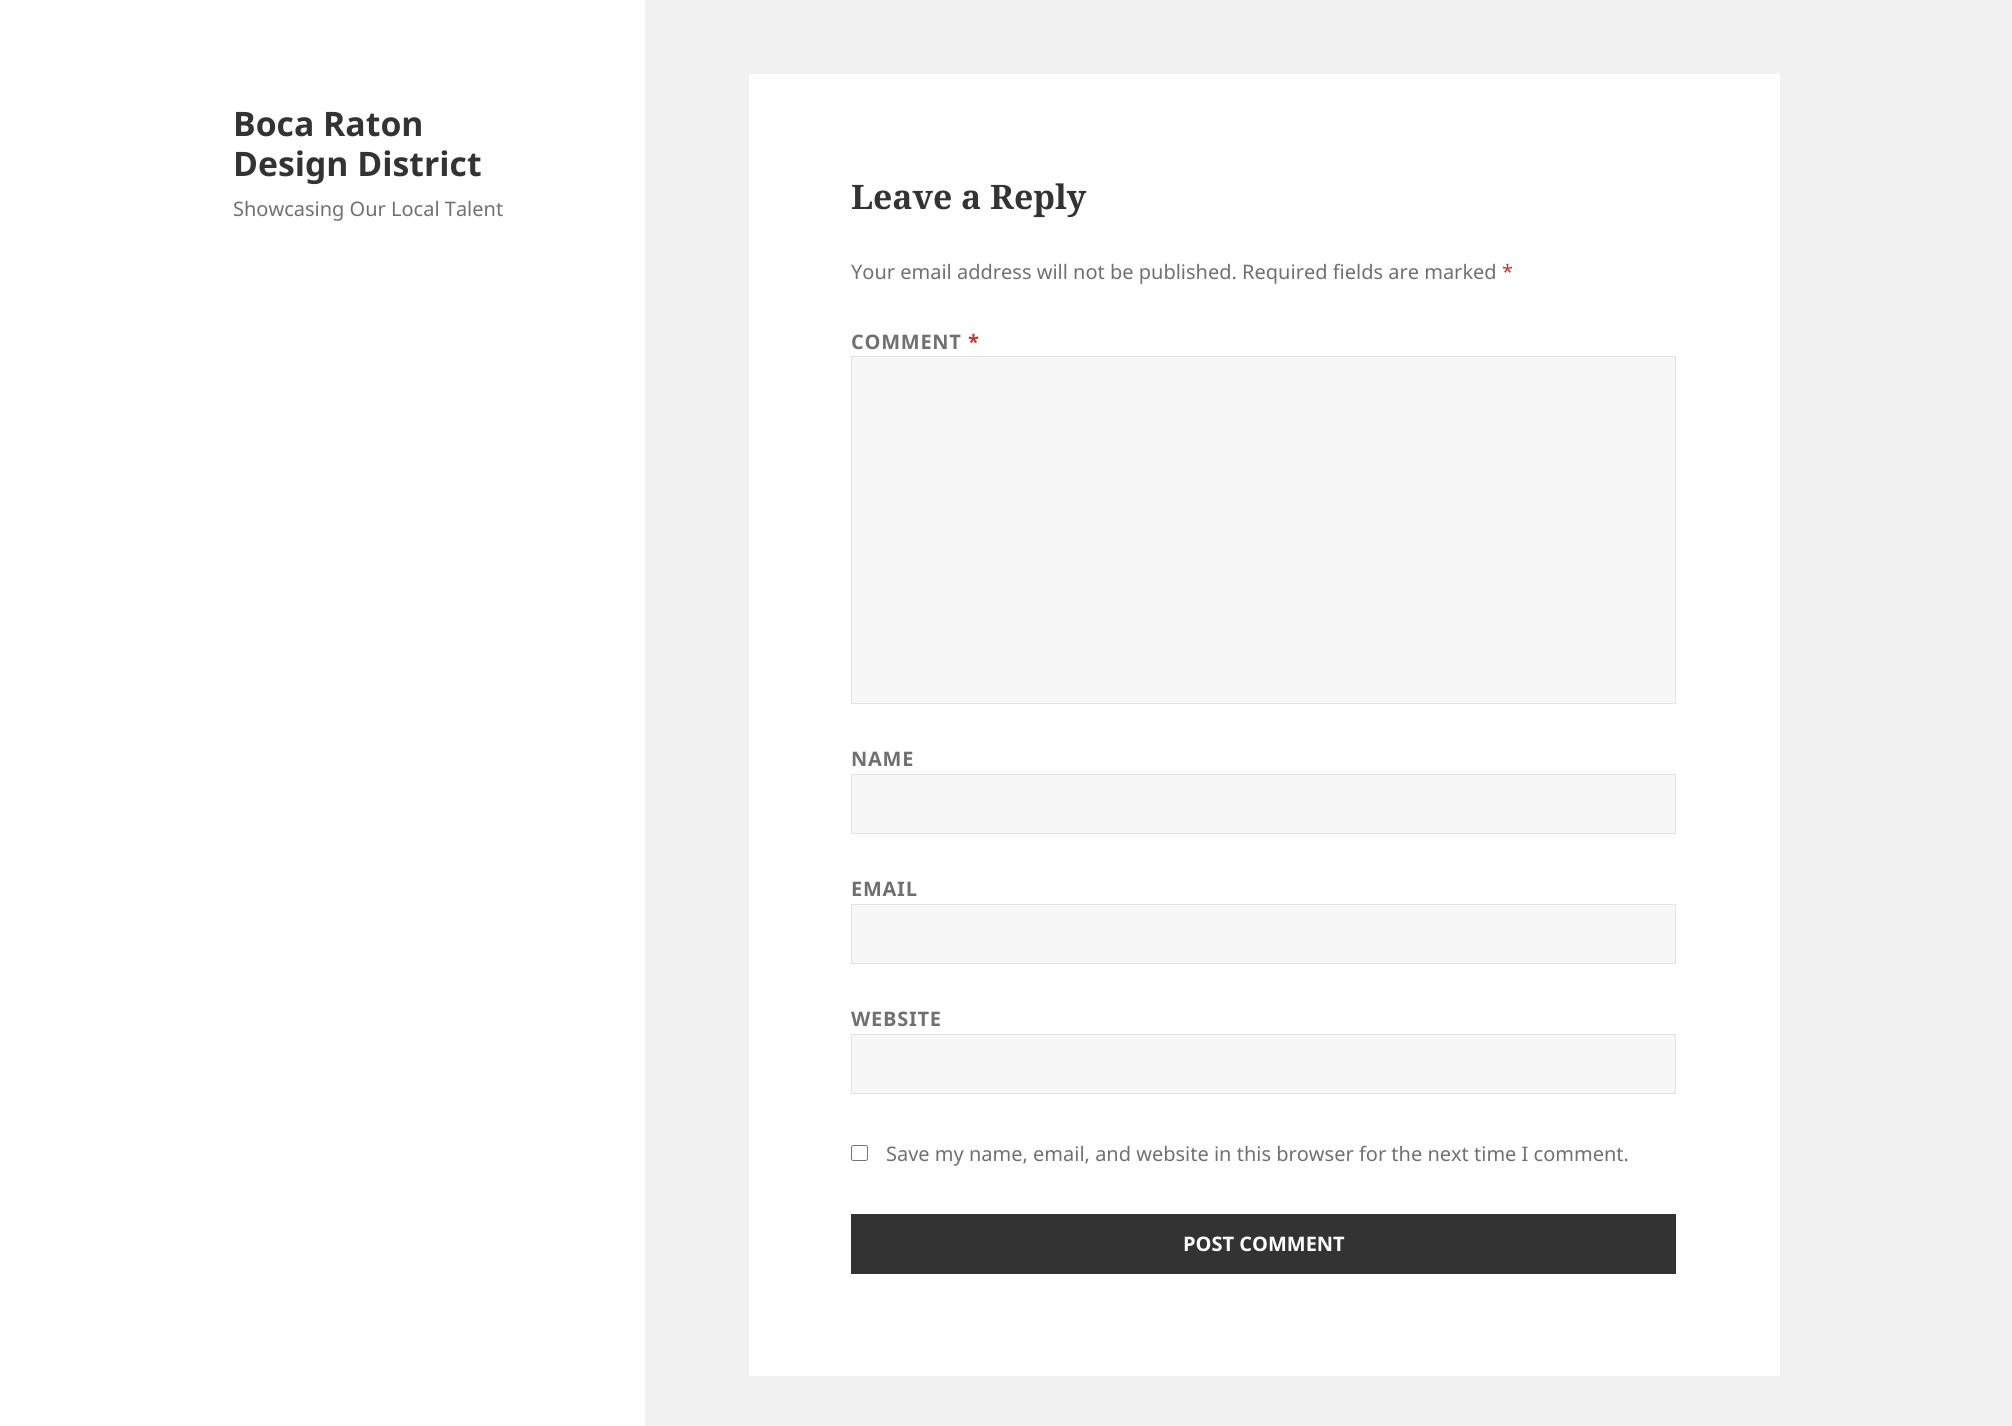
#include <cairo/cairo.h>
#include <math.h>
#include <stddef.h>

static cairo_t *cr;

static void use_color(int r, int g, int b) {
  cairo_set_source_rgb(cr, r / 255.0, g / 255.0, b / 255.0);
}

static void text(double x, double y, const char *s, const char *family, double size, int italic, int bold, int r, int g, int b) {
  cairo_select_font_face(cr, family, italic ? CAIRO_FONT_SLANT_ITALIC : CAIRO_FONT_SLANT_NORMAL,
    bold ? CAIRO_FONT_WEIGHT_BOLD : CAIRO_FONT_WEIGHT_NORMAL);
  cairo_set_font_size(cr, size);
  use_color(r, g, b);
  cairo_move_to(cr, x, y);
  cairo_show_text(cr, s);
}

static void spaced_text(double x, double y, const char *s, double letter, double word) {
  cairo_move_to(cr, x, y);
  while (*s) {
    char ch[5] = {0};
    int n = 0;
    do ch[n++] = *s++; while ((*s & 0xC0) == 0x80);
    cairo_show_text(cr, ch);
    cairo_rel_move_to(cr, letter + word * (*ch == ' '), 0);
  }
}

static void box(double x, double y, double w, double h, int r, int g, int b) {
  use_color(r, g, b);
  cairo_rectangle(cr, x, y, w, h);
  cairo_fill(cr);
}

static void round_rect(double x, double y, double w, double h, double r) {
  cairo_new_sub_path(cr);
  cairo_arc(cr, x + w - r, y + h - r, r, 0, M_PI / 2);
  cairo_arc(cr, x + r, y + h - r, r, M_PI / 2, M_PI);
  cairo_arc(cr, x + r, y + r, r, M_PI, 1.5 * M_PI);
  cairo_arc(cr, x + w - r, y + r, r, 1.5 * M_PI, 2 * M_PI);
  cairo_close_path(cr);
}

static void draw(void) {
  use_color(241, 241, 241);
  cairo_paint(cr);
  box(0, 0, 645, 1426, 255, 255, 255);
  box(749, 74, 1031, 1302, 255, 255, 255);
  use_color(247, 247, 247);
  cairo_rectangle(cr, 851.5, 356.5, 824, 347);
  cairo_fill_preserve(cr);
  use_color(227, 227, 227);
  cairo_set_line_width(cr, 1);
  cairo_stroke(cr);
  use_color(247, 247, 247);
  cairo_rectangle(cr, 851.5, 774.5, 824, 59);
  cairo_fill_preserve(cr);
  use_color(227, 227, 227);
  cairo_stroke(cr);
  use_color(247, 247, 247);
  cairo_rectangle(cr, 851.5, 904.5, 824, 59);
  cairo_fill_preserve(cr);
  use_color(227, 227, 227);
  cairo_stroke(cr);
  use_color(247, 247, 247);
  cairo_rectangle(cr, 851.5, 1034.5, 824, 59);
  cairo_fill_preserve(cr);
  use_color(227, 227, 227);
  cairo_stroke(cr);
  round_rect(851.5, 1145.5, 16, 15, 2);
  use_color(118, 118, 118);
  cairo_stroke(cr);
  box(851, 1214, 825, 60, 51, 51, 51);
  text(233, 136, "Boca Raton", "Noto Sans", 33.75, 0, 1, 51, 51, 51);
  text(233, 176, "Design District", "Noto Sans", 33.75, 0, 1, 51, 51, 51);
  text(233, 216, "Showcasing Our Local Talent", "Noto Sans", 20, 0, 0, 112, 112, 112);
  text(851, 209, "Leave a Reply", "Noto Serif", 33.75, 0, 1, 51, 51, 51);
  text(851, 279, "Your email address will not be published. Required fields are marked", "Noto Sans", 20, 0, 0, 112, 112, 112);
  text(1502, 279, "*", "Noto Sans", 20, 0, 0, 192, 57, 43);
  cairo_select_font_face(cr, "Noto Sans", CAIRO_FONT_SLANT_NORMAL, CAIRO_FONT_WEIGHT_BOLD);
  use_color(112, 112, 112);
  spaced_text(851, 349, "COMMENT", 0.75, 0);
  use_color(192, 57, 43);
  spaced_text(968, 349, "*", 0.75, 0);
  use_color(112, 112, 112);
  spaced_text(851, 766, "NAME", 0.75, 0);
  spaced_text(851, 896, "EMAIL", 0.75, 0);
  spaced_text(851, 1026, "WEBSITE", 0.75, 0);
  text(886, 1161, "Save my name, email, and website in this browser for the next time I comment.", "Noto Sans", 20, 0, 0, 112, 112, 112);
  text(1183, 1251, "POST COMMENT", "Noto Sans", 20, 0, 1, 255, 255, 255);
}

int main(void) {
  cairo_surface_t *surface = cairo_image_surface_create(CAIRO_FORMAT_RGB24, 2012, 1426);
  cr = cairo_create(surface);
  cairo_font_options_t *options = cairo_font_options_create();
  cairo_font_options_set_hint_metrics(options, CAIRO_HINT_METRICS_OFF);
  cairo_font_options_set_hint_style(options, CAIRO_HINT_STYLE_NONE);
  cairo_set_font_options(cr, options);
  cairo_set_miter_limit(cr, 4);
  draw();
  cairo_surface_write_to_png(surface, "out.png");
  cairo_font_options_destroy(options);
  cairo_destroy(cr);
  cairo_surface_destroy(surface);
  return 0;
}
